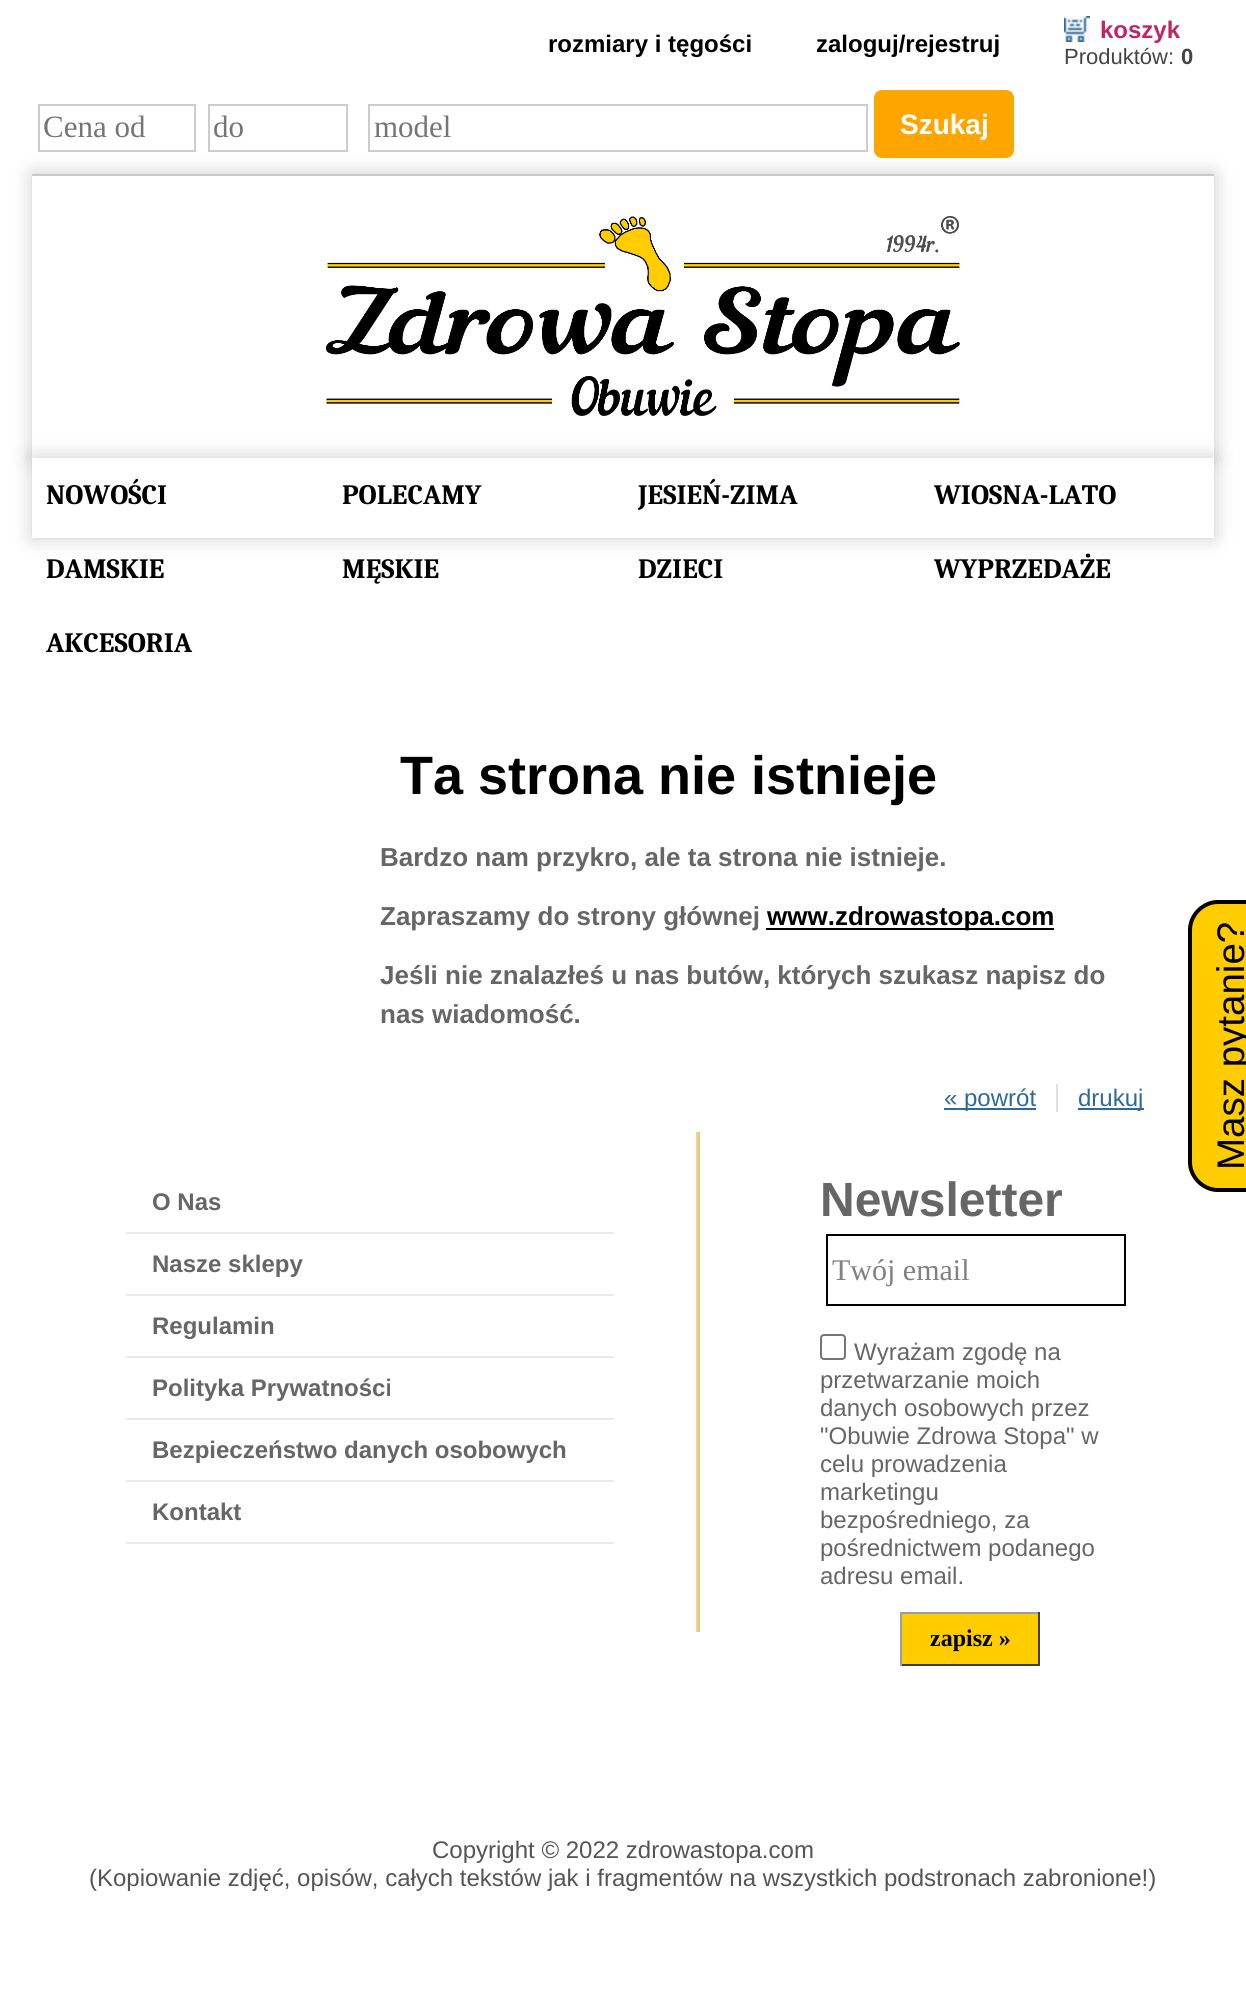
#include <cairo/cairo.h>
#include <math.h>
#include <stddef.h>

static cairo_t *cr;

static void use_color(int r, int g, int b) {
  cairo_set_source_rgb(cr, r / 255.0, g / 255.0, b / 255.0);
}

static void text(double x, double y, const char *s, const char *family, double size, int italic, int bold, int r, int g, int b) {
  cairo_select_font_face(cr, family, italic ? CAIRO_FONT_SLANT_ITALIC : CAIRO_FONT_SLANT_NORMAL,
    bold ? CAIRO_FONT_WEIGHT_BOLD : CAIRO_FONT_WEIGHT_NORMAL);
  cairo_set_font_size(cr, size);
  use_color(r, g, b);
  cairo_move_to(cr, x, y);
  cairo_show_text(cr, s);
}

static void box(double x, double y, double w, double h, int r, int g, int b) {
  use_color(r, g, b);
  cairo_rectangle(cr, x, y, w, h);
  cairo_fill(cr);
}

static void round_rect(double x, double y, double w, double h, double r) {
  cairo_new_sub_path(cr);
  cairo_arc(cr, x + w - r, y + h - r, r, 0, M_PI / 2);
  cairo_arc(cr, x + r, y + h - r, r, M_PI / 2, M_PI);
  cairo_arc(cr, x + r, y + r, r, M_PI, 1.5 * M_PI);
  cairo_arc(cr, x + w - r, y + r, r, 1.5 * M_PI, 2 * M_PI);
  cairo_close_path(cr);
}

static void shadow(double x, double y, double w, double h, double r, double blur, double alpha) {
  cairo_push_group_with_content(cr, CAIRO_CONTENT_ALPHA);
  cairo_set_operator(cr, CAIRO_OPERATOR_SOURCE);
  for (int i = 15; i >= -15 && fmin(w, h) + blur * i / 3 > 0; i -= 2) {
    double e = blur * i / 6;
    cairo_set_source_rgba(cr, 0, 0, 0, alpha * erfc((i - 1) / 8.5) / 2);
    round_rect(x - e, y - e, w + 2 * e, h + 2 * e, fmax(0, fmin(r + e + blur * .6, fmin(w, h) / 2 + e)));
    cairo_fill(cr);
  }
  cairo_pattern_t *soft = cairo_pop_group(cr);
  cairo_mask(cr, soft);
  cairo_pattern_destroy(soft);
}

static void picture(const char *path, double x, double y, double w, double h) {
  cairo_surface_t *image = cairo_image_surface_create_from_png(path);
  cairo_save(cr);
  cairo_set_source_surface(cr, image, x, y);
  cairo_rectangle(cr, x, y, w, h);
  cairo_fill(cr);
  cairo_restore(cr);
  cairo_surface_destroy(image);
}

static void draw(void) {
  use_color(255, 255, 255);
  cairo_paint(cr);
  picture("img_01.png", 1064, 16, 26, 26);
  cairo_save(cr);
  cairo_set_fill_rule(cr, CAIRO_FILL_RULE_EVEN_ODD);
  cairo_new_path(cr);
  cairo_move_to(cr, 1, 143);
  cairo_line_to(cr, 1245, 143);
  cairo_line_to(cr, 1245, 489);
  cairo_line_to(cr, 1, 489);
  cairo_close_path(cr);
  cairo_move_to(cr, 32, 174);
  cairo_line_to(cr, 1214, 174);
  cairo_line_to(cr, 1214, 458);
  cairo_line_to(cr, 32, 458);
  cairo_close_path(cr);
  cairo_clip(cr);
  use_color(50, 50, 50);
  shadow(32, 174, 1182, 284, 0, 10, 0.25);
  cairo_restore(cr);
  cairo_rectangle(cr, 39, 105, 156, 46);
  use_color(204, 204, 204);
  cairo_stroke(cr);
  cairo_rectangle(cr, 209, 105, 138, 46);
  cairo_stroke(cr);
  cairo_rectangle(cr, 369, 105, 498, 46);
  cairo_stroke(cr);
  use_color(255, 165, 0);
  round_rect(874, 90, 140, 68, 8);
  cairo_fill(cr);
  box(32, 174, 1182, 2, 201, 201, 201);
  picture("img_02.png", 326, 216, 634, 200);
  use_color(50, 50, 50);
  shadow(32, 458, 1182, 80, 0, 10, 0.25);
  box(32, 458, 1182, 80, 255, 255, 255);
  box(766, 928, 288, 2, 0, 0, 0);
  box(944, 1108, 92, 2, 46, 106, 151);
  box(1056, 1084, 2, 28, 224, 224, 224);
  box(1078, 1108, 66, 2, 46, 106, 151);
  use_color(255, 204, 0);
  cairo_new_path(cr);
  cairo_move_to(cr, 1188, 1162);
  cairo_line_to(cr, 1188, 930);
  cairo_curve_to(cr, 1188, 914, 1202, 900, 1218, 900);
  cairo_line_to(cr, 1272, 900);
  cairo_line_to(cr, 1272, 1192);
  cairo_line_to(cr, 1218, 1192);
  cairo_curve_to(cr, 1202, 1192, 1188, 1178, 1188, 1162);
  cairo_close_path(cr);
  cairo_fill(cr);
  use_color(0, 0, 0);
  cairo_set_fill_rule(cr, CAIRO_FILL_RULE_EVEN_ODD);
  cairo_new_path(cr);
  cairo_move_to(cr, 1188, 1162);
  cairo_line_to(cr, 1188, 930);
  cairo_curve_to(cr, 1188, 914, 1202, 900, 1218, 900);
  cairo_line_to(cr, 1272, 900);
  cairo_line_to(cr, 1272, 1192);
  cairo_line_to(cr, 1218, 1192);
  cairo_curve_to(cr, 1202, 1192, 1188, 1178, 1188, 1162);
  cairo_close_path(cr);
  cairo_move_to(cr, 1192, 1162);
  cairo_line_to(cr, 1192, 930);
  cairo_curve_to(cr, 1192, 916, 1204, 904, 1218, 904);
  cairo_line_to(cr, 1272, 904);
  cairo_line_to(cr, 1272, 1188);
  cairo_line_to(cr, 1218, 1188);
  cairo_curve_to(cr, 1204, 1188, 1192, 1176, 1192, 1162);
  cairo_close_path(cr);
  cairo_fill(cr);
  picture("img_03.png", 696, 1132, 4, 500);
  box(126, 1232, 488, 2, 232, 234, 237);
  box(126, 1294, 488, 2, 232, 234, 237);
  box(126, 1356, 488, 2, 232, 234, 237);
  box(126, 1418, 488, 2, 232, 234, 237);
  box(126, 1480, 488, 2, 232, 234, 237);
  box(126, 1542, 488, 2, 232, 234, 237);
  cairo_rectangle(cr, 827, 1235, 298, 70);
  use_color(0, 0, 0);
  cairo_stroke(cr);
  round_rect(821, 1335, 24, 24, 3);
  use_color(118, 118, 118);
  cairo_stroke(cr);
  box(902, 1614, 136, 50, 255, 204, 0);
  box(900, 1612, 140, 2, 157, 157, 157);
  box(1038, 1612, 2, 54, 63, 63, 63);
  box(900, 1664, 140, 2, 63, 63, 63);
  box(900, 1612, 2, 54, 157, 157, 157);
  text(548, 52, "rozmiary i tęgości", "Liberation Sans", 24, 0, 1, 0, 0, 0);
  text(816, 52, "zaloguj/rejestruj", "Liberation Sans", 24, 0, 1, 0, 0, 0);
  text(1100, 38, "koszyk", "Liberation Sans", 24, 0, 1, 194, 36, 99);
  text(1064, 64, "Produktów:", "Liberation Sans", 22, 0, 0, 68, 68, 68);
  text(1181, 64, "0", "Liberation Sans", 22, 0, 1, 68, 68, 68);
  text(43, 137, "Cena od", "Liberation Serif", 31, 0, 0, 117, 117, 117);
  text(213, 137, "do", "Liberation Serif", 31, 0, 0, 117, 117, 117);
  text(374, 137, "model", "Liberation Serif", 31, 0, 0, 117, 117, 117);
  text(900, 134, "Szukaj", "Liberation Sans", 28, 0, 1, 255, 255, 255);
  text(46, 504, "NOWOŚCI", "Caladea", 28, 0, 1, 0, 0, 0);
  text(342, 504, "POLECAMY", "Caladea", 28, 0, 1, 0, 0, 0);
  text(638, 504, "JESIEŃ-ZIMA", "Caladea", 28, 0, 1, 0, 0, 0);
  text(934, 504, "WIOSNA-LATO", "Caladea", 28, 0, 1, 0, 0, 0);
  text(46, 578, "DAMSKIE", "Caladea", 28, 0, 1, 0, 0, 0);
  text(342, 578, "MĘSKIE", "Caladea", 28, 0, 1, 0, 0, 0);
  text(638, 578, "DZIECI", "Caladea", 28, 0, 1, 0, 0, 0);
  text(934, 578, "WYPRZEDAŻE", "Caladea", 28, 0, 1, 0, 0, 0);
  text(46, 652, "AKCESORIA", "Caladea", 28, 0, 1, 0, 0, 0);
  text(400, 794, "Ta strona nie istnieje", "Liberation Sans", 54, 0, 1, 0, 0, 0);
  text(380, 866, "Bardzo nam przykro, ale ta strona nie istnieje.", "Liberation Sans", 26, 0, 1, 102, 102, 102);
  text(380, 925, "Zapraszamy do strony głównej", "Liberation Sans", 26, 0, 1, 102, 102, 102);
  text(767, 925, "www.zdrowastopa.com", "Liberation Sans", 26, 0, 1, 0, 0, 0);
  text(380, 984, "Jeśli nie znalazłeś u nas butów, których szukasz napisz do", "Liberation Sans", 26, 0, 1, 102, 102, 102);
  text(380, 1023, "nas wiadomość.", "Liberation Sans", 26, 0, 1, 102, 102, 102);
  text(944, 1106, "« powrót", "Liberation Sans", 24, 0, 0, 46, 106, 151);
  text(1078, 1106, "drukuj", "Liberation Sans", 24, 0, 0, 46, 106, 151);
  cairo_save(cr);
  cairo_translate(cr, 1244, 1170);
  cairo_rotate(cr, -90 * M_PI / 180);
  text(0, 0, "Masz pytanie?", "Liberation Sans", 38.5, 0, 0, 0, 0, 0);
  cairo_restore(cr);
  text(152, 1210, "O Nas", "Liberation Sans", 24, 0, 1, 102, 102, 102);
  text(152, 1272, "Nasze sklepy", "Liberation Sans", 24, 0, 1, 102, 102, 102);
  text(152, 1334, "Regulamin", "Liberation Sans", 24, 0, 1, 102, 102, 102);
  text(152, 1396, "Polityka Prywatności", "Liberation Sans", 24, 0, 1, 102, 102, 102);
  text(152, 1458, "Bezpieczeństwo danych osobowych", "Liberation Sans", 24, 0, 1, 102, 102, 102);
  text(152, 1520, "Kontakt", "Liberation Sans", 24, 0, 1, 102, 102, 102);
  text(820, 1216, "Newsletter", "Liberation Sans", 48, 0, 1, 102, 102, 102);
  text(832, 1280, "Twój email", "Liberation Serif", 30, 0, 0, 128, 128, 128);
  text(854, 1360, "Wyrażam zgodę na", "Liberation Sans", 24, 0, 0, 102, 102, 102);
  text(820, 1388, "przetwarzanie moich", "Liberation Sans", 24, 0, 0, 102, 102, 102);
  text(820, 1416, "danych osobowych przez", "Liberation Sans", 24, 0, 0, 102, 102, 102);
  text(820, 1444, "\"Obuwie Zdrowa Stopa\" w", "Liberation Sans", 24, 0, 0, 102, 102, 102);
  text(820, 1472, "celu prowadzenia", "Liberation Sans", 24, 0, 0, 102, 102, 102);
  text(820, 1500, "marketingu", "Liberation Sans", 24, 0, 0, 102, 102, 102);
  text(820, 1528, "bezpośredniego, za", "Liberation Sans", 24, 0, 0, 102, 102, 102);
  text(820, 1556, "pośrednictwem podanego", "Liberation Sans", 24, 0, 0, 102, 102, 102);
  text(820, 1584, "adresu email.", "Liberation Sans", 24, 0, 0, 102, 102, 102);
  text(930, 1646, "zapisz »", "Liberation Serif", 24, 0, 1, 0, 0, 0);
  text(432, 1858, "Copyright © 2022 zdrowastopa.com", "Liberation Sans", 24, 0, 0, 85, 85, 85);
  text(89, 1886, "(Kopiowanie zdjęć, opisów, całych tekstów jak i fragmentów na wszystkich podstronach zabronione!)", "Liberation Sans", 24, 0, 0, 85, 85, 85);
}

int main(void) {
  cairo_surface_t *surface = cairo_image_surface_create(CAIRO_FORMAT_RGB24, 1246, 2008);
  cr = cairo_create(surface);
  cairo_font_options_t *options = cairo_font_options_create();
  cairo_font_options_set_hint_metrics(options, CAIRO_HINT_METRICS_OFF);
  cairo_font_options_set_hint_style(options, CAIRO_HINT_STYLE_NONE);
  cairo_set_font_options(cr, options);
  cairo_set_miter_limit(cr, 4);
  draw();
  cairo_surface_write_to_png(surface, "out.png");
  cairo_font_options_destroy(options);
  cairo_destroy(cr);
  cairo_surface_destroy(surface);
  return 0;
}
